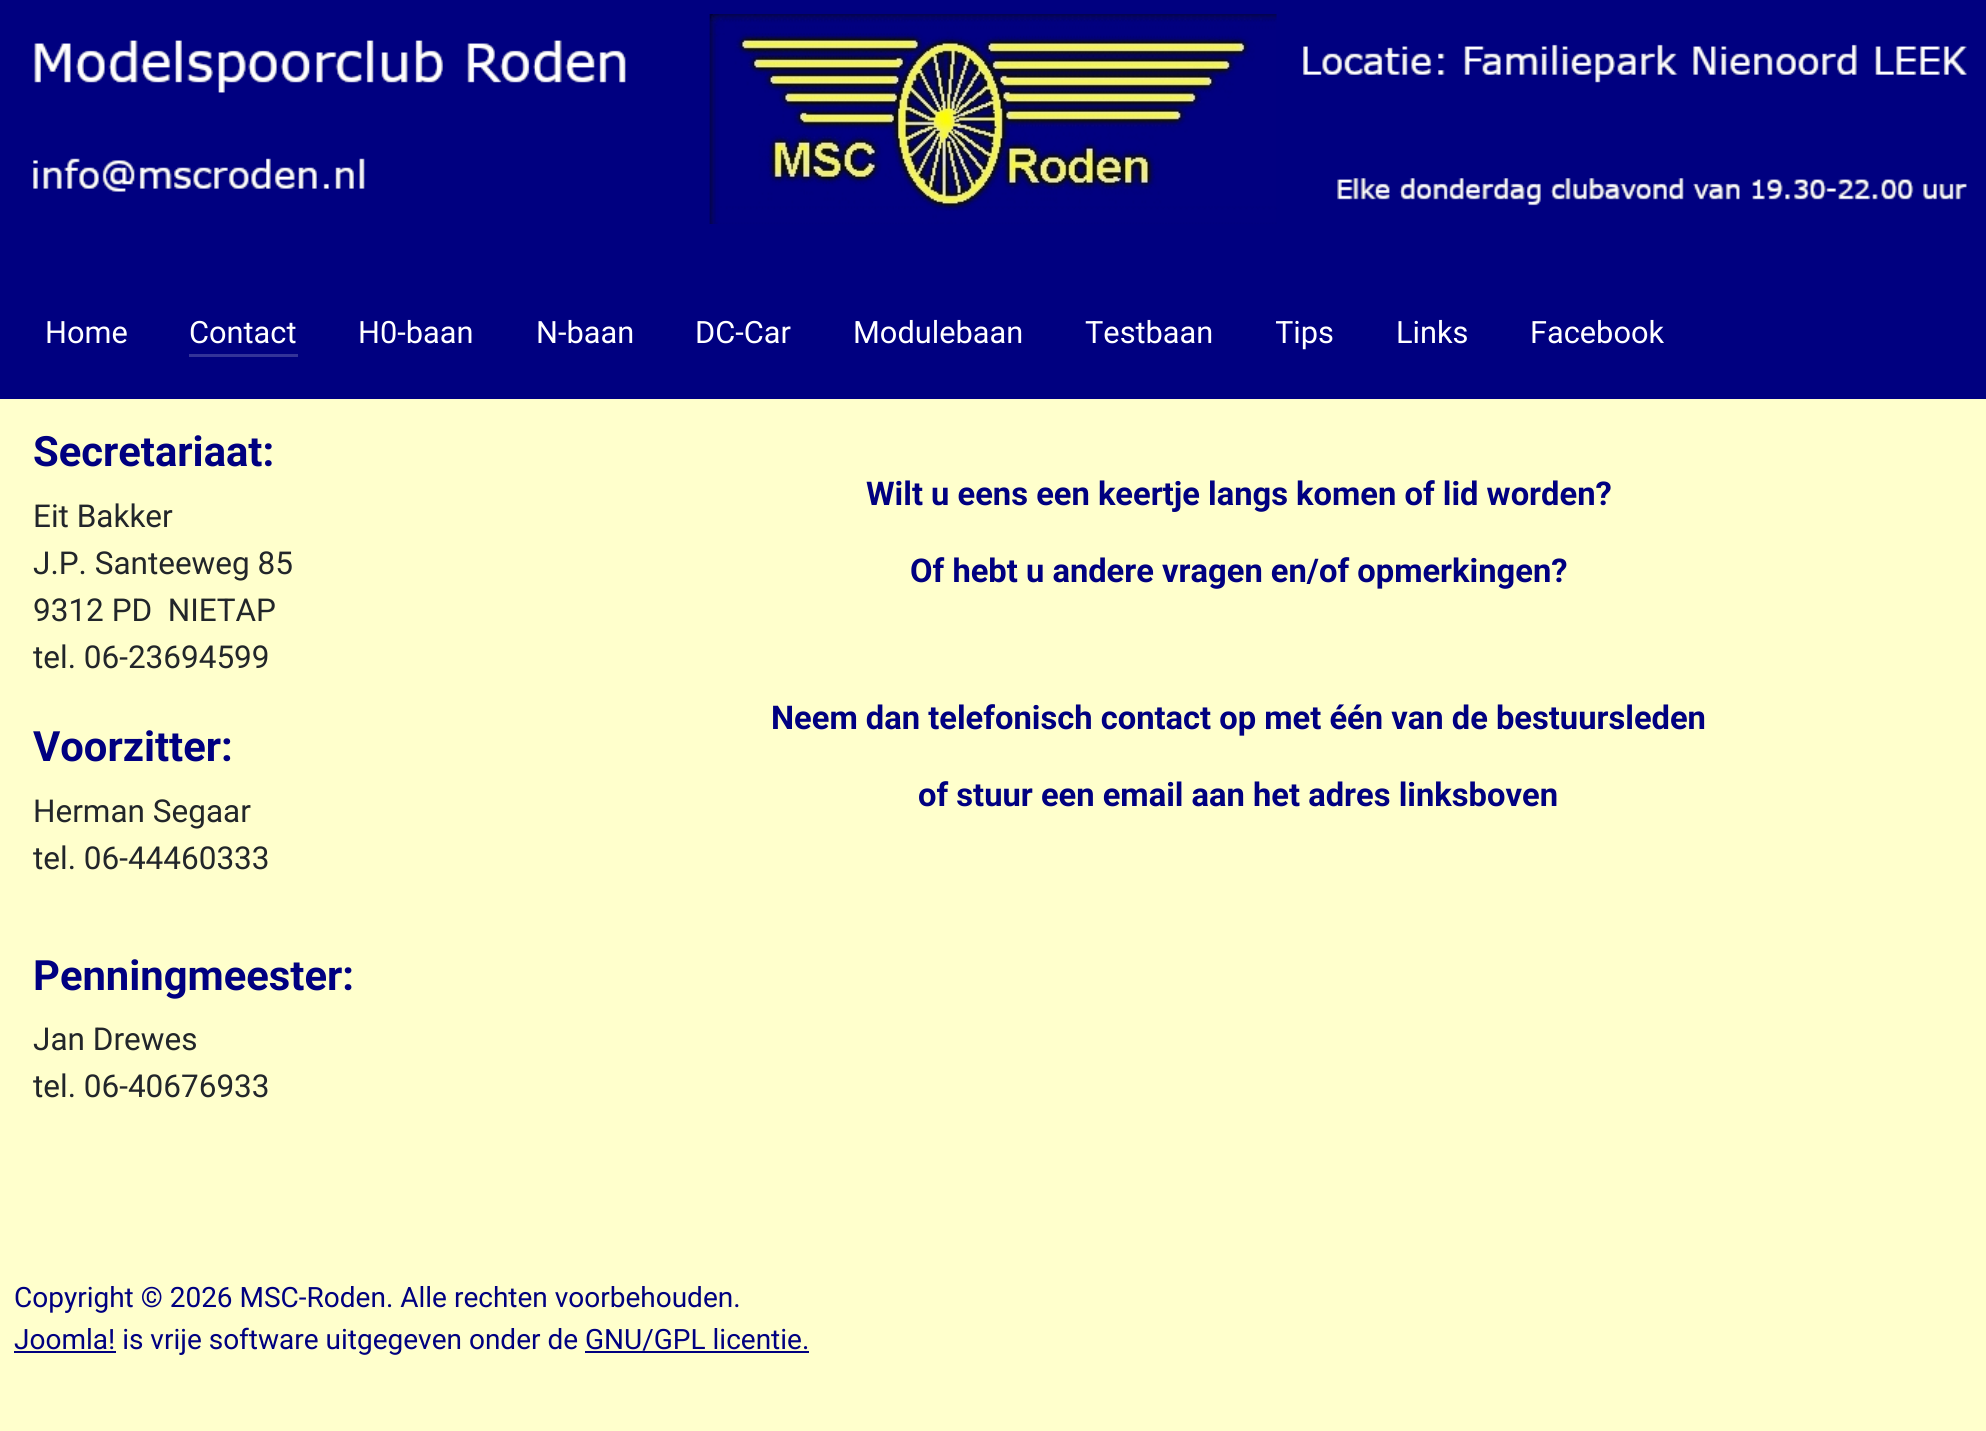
#include <cairo/cairo.h>
#include <math.h>
#include <stddef.h>

static cairo_t *cr;

static void use_color(int r, int g, int b) {
  cairo_set_source_rgb(cr, r / 255.0, g / 255.0, b / 255.0);
}

static void text(double x, double y, const char *s, const char *family, double size, int italic, int bold, int r, int g, int b) {
  cairo_select_font_face(cr, family, italic ? CAIRO_FONT_SLANT_ITALIC : CAIRO_FONT_SLANT_NORMAL,
    bold ? CAIRO_FONT_WEIGHT_BOLD : CAIRO_FONT_WEIGHT_NORMAL);
  cairo_set_font_size(cr, size);
  use_color(r, g, b);
  cairo_move_to(cr, x, y);
  cairo_show_text(cr, s);
}

static void box(double x, double y, double w, double h, int r, int g, int b) {
  use_color(r, g, b);
  cairo_rectangle(cr, x, y, w, h);
  cairo_fill(cr);
}

static void picture(const char *path, double x, double y, double w, double h) {
  cairo_surface_t *image = cairo_image_surface_create_from_png(path);
  cairo_save(cr);
  cairo_set_source_surface(cr, image, x, y);
  cairo_rectangle(cr, x, y, w, h);
  cairo_fill(cr);
  cairo_restore(cr);
  cairo_surface_destroy(image);
}

static void draw(void) {
  use_color(255, 255, 204);
  cairo_paint(cr);
  box(0, 0, 1986, 399, 0, 0, 128);
  picture("img_01.png", 33, 14, 1934, 210);
  box(189, 354, 109, 3, 51, 51, 153);
  box(14, 1351, 102, 2, 0, 0, 128);
  box(585, 1351, 224, 2, 0, 0, 128);
  text(45, 343, "Home", "Roboto", 30.75, 0, 0, 255, 255, 255);
  text(189, 343, "Contact", "Roboto", 30.75, 0, 0, 255, 255, 255);
  text(358, 343, "H0-baan", "Roboto", 30.75, 0, 0, 255, 255, 255);
  text(536, 343, "N-baan", "Roboto", 30.75, 0, 0, 255, 255, 255);
  text(695, 343, "DC-Car", "Roboto", 30.75, 0, 0, 255, 255, 255);
  text(853, 343, "Modulebaan", "Roboto", 30.75, 0, 0, 255, 255, 255);
  text(1085, 343, "Testbaan", "Roboto", 30.75, 0, 0, 255, 255, 255);
  cairo_save(cr);
  cairo_rectangle(cr, 1276, 310, 58, 47);
  cairo_clip(cr);
  text(1275, 343, "Tips", "Roboto", 30.75, 0, 0, 255, 255, 255);
  cairo_restore(cr);
  text(1396, 343, "Links", "Roboto", 30.75, 0, 0, 255, 255, 255);
  text(1530, 343, "Facebook", "Roboto", 30.75, 0, 0, 255, 255, 255);
  text(33, 466, "Secretariaat:", "Roboto", 41.75, 0, 1, 0, 0, 128);
  text(33, 527, "Eit Bakker", "Roboto", 31.5, 0, 0, 34, 38, 42);
  text(33, 574, "J.P. Santeeweg 85", "Roboto", 31.5, 0, 0, 34, 38, 42);
  text(33, 621, "9312 PD  NIETAP", "Roboto", 31.5, 0, 0, 34, 38, 42);
  text(33, 668, "tel. 06-23694599", "Roboto", 31.5, 0, 0, 34, 38, 42);
  text(33, 761, "Voorzitter:", "Roboto", 41.75, 0, 1, 0, 0, 128);
  text(33, 822, "Herman Segaar", "Roboto", 31.5, 0, 0, 34, 38, 42);
  text(33, 869, "tel. 06-44460333", "Roboto", 31.5, 0, 0, 34, 38, 42);
  text(33, 990, "Penningmeester:", "Roboto", 41.75, 0, 1, 0, 0, 128);
  text(33, 1050, "Jan Drewes", "Roboto", 31.5, 0, 0, 34, 38, 42);
  text(33, 1097, "tel. 06-40676933", "Roboto", 31.5, 0, 0, 34, 38, 42);
  text(866, 505, "Wilt u eens een keertje langs komen of lid worden?", "Roboto", 32.7, 0, 1, 0, 0, 128);
  text(910, 582, "Of hebt u andere vragen en/of opmerkingen?", "Roboto", 32.7, 0, 1, 0, 0, 128);
  text(771, 729, "Neem dan telefonisch contact op met één van de bestuursleden", "Roboto", 32.7, 0, 1, 0, 0, 128);
  text(918, 806, "of stuur een email aan het adres linksboven", "Roboto", 32.7, 0, 1, 0, 0, 128);
  text(14, 1307, "Copyright © 2026 MSC-Roden. Alle rechten voorbehouden.", "Roboto", 28, 0, 0, 0, 0, 128);
  text(14, 1349, "Joomla! is vrije software uitgegeven onder de GNU/GPL licentie.", "Roboto", 28, 0, 0, 0, 0, 128);
}

int main(void) {
  cairo_surface_t *surface = cairo_image_surface_create(CAIRO_FORMAT_RGB24, 1986, 1431);
  cr = cairo_create(surface);
  cairo_font_options_t *options = cairo_font_options_create();
  cairo_font_options_set_hint_metrics(options, CAIRO_HINT_METRICS_OFF);
  cairo_font_options_set_hint_style(options, CAIRO_HINT_STYLE_NONE);
  cairo_set_font_options(cr, options);
  cairo_set_miter_limit(cr, 4);
  draw();
  cairo_surface_write_to_png(surface, "out.png");
  cairo_font_options_destroy(options);
  cairo_destroy(cr);
  cairo_surface_destroy(surface);
  return 0;
}
